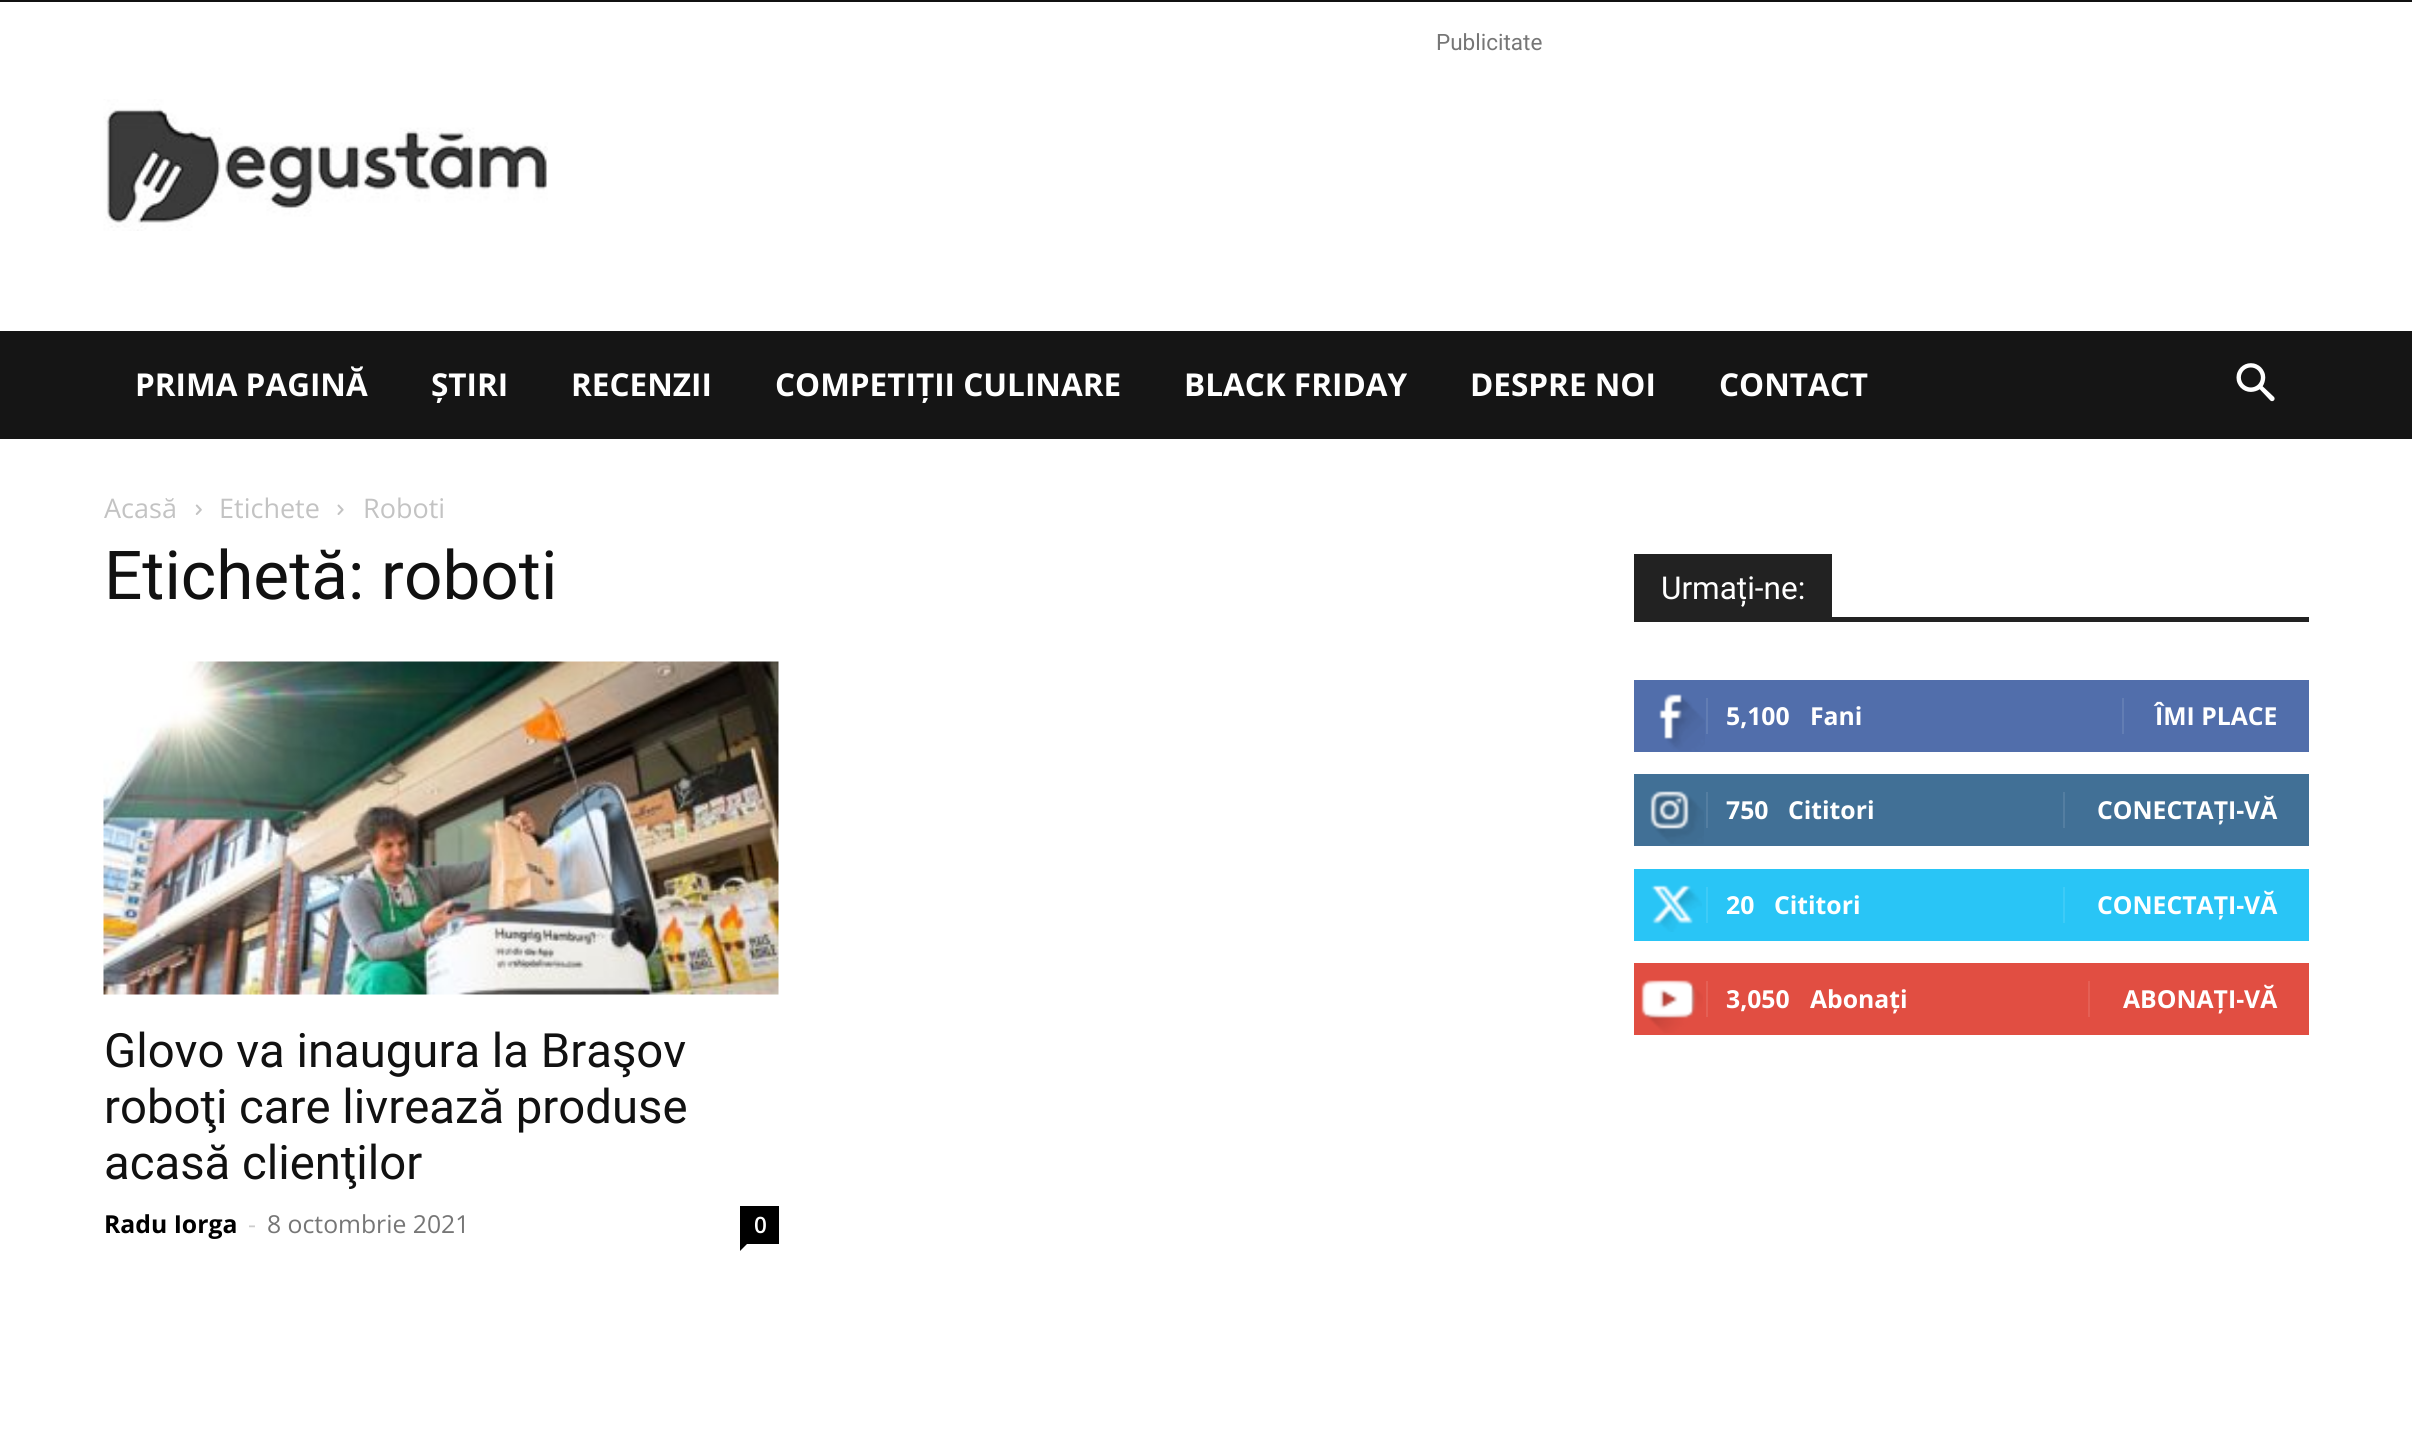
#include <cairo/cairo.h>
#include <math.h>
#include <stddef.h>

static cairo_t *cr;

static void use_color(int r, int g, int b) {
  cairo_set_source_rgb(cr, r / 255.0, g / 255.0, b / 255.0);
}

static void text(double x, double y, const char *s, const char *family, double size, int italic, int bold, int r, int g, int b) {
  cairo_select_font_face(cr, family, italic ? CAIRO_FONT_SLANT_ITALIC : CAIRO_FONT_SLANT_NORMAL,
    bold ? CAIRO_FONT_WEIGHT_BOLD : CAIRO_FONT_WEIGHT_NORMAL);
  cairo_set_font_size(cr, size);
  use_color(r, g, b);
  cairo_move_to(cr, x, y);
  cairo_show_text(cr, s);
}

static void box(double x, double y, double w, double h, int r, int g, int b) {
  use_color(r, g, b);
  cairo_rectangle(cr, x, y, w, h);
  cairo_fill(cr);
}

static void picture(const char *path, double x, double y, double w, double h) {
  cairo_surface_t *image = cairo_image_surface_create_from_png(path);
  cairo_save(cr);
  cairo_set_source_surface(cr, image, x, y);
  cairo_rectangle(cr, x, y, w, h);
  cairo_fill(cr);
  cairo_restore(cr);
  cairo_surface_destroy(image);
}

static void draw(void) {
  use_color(255, 255, 255);
  cairo_paint(cr);
  box(0, 0, 2412, 2, 17, 17, 17);
  picture("img_01.png", 103, 99, 445, 132);
  box(0, 331, 2412, 108, 21, 21, 21);
  picture("img_02.png", 2236, 363, 39, 39);
  picture("img_03.png", 195, 504, 7, 11);
  picture("img_04.png", 337, 504, 7, 11);
  picture("img_05.png", 103, 661, 676, 334);
  box(740, 1206, 39, 38, 0, 0, 0);
  cairo_new_path(cr);
  cairo_move_to(cr, 740, 1244);
  cairo_line_to(cr, 747, 1244);
  cairo_line_to(cr, 740, 1251);
  cairo_close_path(cr);
  cairo_fill(cr);
  box(1634, 617, 675, 5, 34, 34, 34);
  box(1634, 554, 198, 63, 34, 34, 34);
  box(1634, 680, 675, 72, 81, 110, 171);
  picture("img_06.png", 1659, 694, 46, 57);
  box(1706, 698, 2, 36, 98, 125, 179);
  box(2122, 698, 2, 36, 98, 125, 179);
  box(1634, 774, 675, 72, 65, 112, 150);
  picture("img_07.png", 1650, 791, 54, 53);
  box(1706, 792, 2, 36, 84, 126, 161);
  box(2063, 792, 2, 36, 84, 126, 161);
  box(1634, 869, 675, 72, 41, 197, 246);
  picture("img_08.png", 1651, 885, 51, 47);
  box(1706, 887, 2, 36, 62, 203, 247);
  box(2063, 887, 2, 36, 62, 203, 247);
  box(1634, 963, 675, 72, 225, 78, 66);
  picture("img_09.png", 1641, 980, 62, 53);
  box(1706, 981, 2, 36, 228, 96, 85);
  box(2088, 981, 2, 36, 228, 96, 85);
  text(1436, 50, "Publicitate", "Roboto", 22.5, 0, 0, 118, 118, 118);
  text(135, 396, "PRIMA PAGINĂ", "Open Sans", 31.5, 0, 1, 255, 255, 255);
  text(431, 396, "ȘTIRI", "Open Sans", 31.5, 0, 1, 255, 255, 255);
  text(571, 396, "RECENZII", "Open Sans", 31.5, 0, 1, 255, 255, 255);
  text(775, 396, "COMPETIȚII CULINARE", "Open Sans", 31.5, 0, 1, 255, 255, 255);
  text(1184, 396, "BLACK FRIDAY", "Open Sans", 31.5, 0, 1, 255, 255, 255);
  text(1470, 396, "DESPRE NOI", "Open Sans", 31.5, 0, 1, 255, 255, 255);
  text(1719, 396, "CONTACT", "Open Sans", 31.5, 0, 1, 255, 255, 255);
  text(104, 518, "Acasă", "Open Sans", 27, 0, 0, 195, 195, 195);
  text(219, 518, "Etichete", "Open Sans", 27, 0, 0, 195, 195, 195);
  text(363, 518, "Roboti", "Open Sans", 27, 0, 0, 195, 195, 195);
  text(104, 599, "Etichetă: roboti", "Roboto", 67.5, 0, 0, 17, 17, 17);
  text(104, 1067, "Glovo va inaugura la Braşov", "Roboto", 47.25, 0, 0, 17, 17, 17);
  text(104, 1123, "roboţi care livrează produse", "Roboto", 47.25, 0, 0, 17, 17, 17);
  text(104, 1179, "acasă clienţilor", "Roboto", 47.25, 0, 0, 17, 17, 17);
  text(104, 1233, "Radu Iorga", "Open Sans", 24.75, 0, 1, 0, 0, 0);
  text(248, 1233, "-", "Open Sans", 24.75, 0, 0, 204, 204, 204);
  text(267, 1233, "8 octombrie 2021", "Open Sans", 24.75, 0, 0, 118, 118, 118);
  text(754, 1233, "0", "Open Sans SemiBold", 22.5, 0, 0, 255, 255, 255);
  text(1661, 599, "Urmați-ne:", "Roboto", 31.5, 0, 0, 255, 255, 255);
  text(1726, 725, "5,100", "Open Sans", 24.75, 0, 1, 255, 255, 255);
  text(1810, 725, "Fani", "Open Sans", 24.75, 0, 1, 255, 255, 255);
  text(2155, 725, "ÎMI PLACE", "Open Sans", 24.75, 0, 1, 255, 255, 255);
  text(1726, 819, "750", "Open Sans", 24.75, 0, 1, 255, 255, 255);
  text(1788, 819, "Cititori", "Open Sans", 24.75, 0, 1, 255, 255, 255);
  text(2097, 819, "CONECTAȚI-VĂ", "Open Sans", 24.75, 0, 1, 255, 255, 255);
  text(1726, 914, "20", "Open Sans", 24.75, 0, 1, 255, 255, 255);
  text(1774, 914, "Cititori", "Open Sans", 24.75, 0, 1, 255, 255, 255);
  text(2097, 914, "CONECTAȚI-VĂ", "Open Sans", 24.75, 0, 1, 255, 255, 255);
  text(1726, 1008, "3,050", "Open Sans", 24.75, 0, 1, 255, 255, 255);
  text(1810, 1008, "Abonați", "Open Sans", 24.75, 0, 1, 255, 255, 255);
  text(2123, 1008, "ABONAȚI-VĂ", "Open Sans", 24.75, 0, 1, 255, 255, 255);
}

int main(void) {
  cairo_surface_t *surface = cairo_image_surface_create(CAIRO_FORMAT_RGB24, 2412, 1430);
  cr = cairo_create(surface);
  cairo_font_options_t *options = cairo_font_options_create();
  cairo_font_options_set_hint_metrics(options, CAIRO_HINT_METRICS_OFF);
  cairo_font_options_set_hint_style(options, CAIRO_HINT_STYLE_NONE);
  cairo_set_font_options(cr, options);
  cairo_set_miter_limit(cr, 4);
  draw();
  cairo_surface_write_to_png(surface, "out.png");
  cairo_font_options_destroy(options);
  cairo_destroy(cr);
  cairo_surface_destroy(surface);
  return 0;
}
